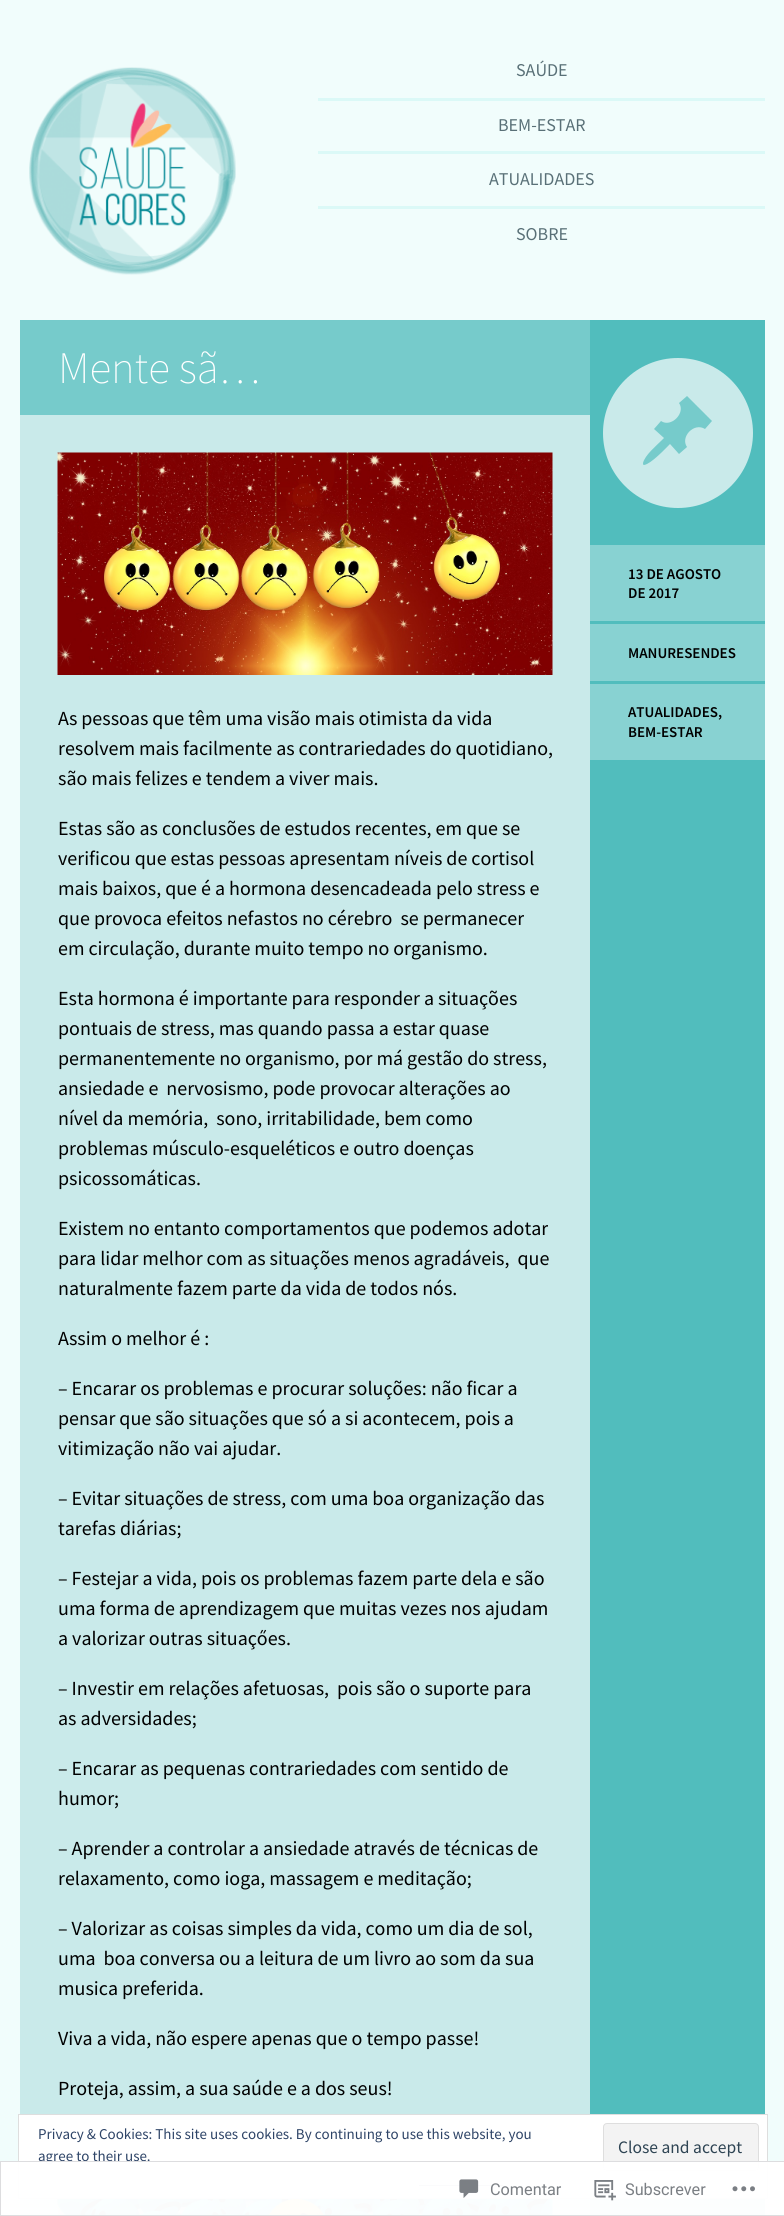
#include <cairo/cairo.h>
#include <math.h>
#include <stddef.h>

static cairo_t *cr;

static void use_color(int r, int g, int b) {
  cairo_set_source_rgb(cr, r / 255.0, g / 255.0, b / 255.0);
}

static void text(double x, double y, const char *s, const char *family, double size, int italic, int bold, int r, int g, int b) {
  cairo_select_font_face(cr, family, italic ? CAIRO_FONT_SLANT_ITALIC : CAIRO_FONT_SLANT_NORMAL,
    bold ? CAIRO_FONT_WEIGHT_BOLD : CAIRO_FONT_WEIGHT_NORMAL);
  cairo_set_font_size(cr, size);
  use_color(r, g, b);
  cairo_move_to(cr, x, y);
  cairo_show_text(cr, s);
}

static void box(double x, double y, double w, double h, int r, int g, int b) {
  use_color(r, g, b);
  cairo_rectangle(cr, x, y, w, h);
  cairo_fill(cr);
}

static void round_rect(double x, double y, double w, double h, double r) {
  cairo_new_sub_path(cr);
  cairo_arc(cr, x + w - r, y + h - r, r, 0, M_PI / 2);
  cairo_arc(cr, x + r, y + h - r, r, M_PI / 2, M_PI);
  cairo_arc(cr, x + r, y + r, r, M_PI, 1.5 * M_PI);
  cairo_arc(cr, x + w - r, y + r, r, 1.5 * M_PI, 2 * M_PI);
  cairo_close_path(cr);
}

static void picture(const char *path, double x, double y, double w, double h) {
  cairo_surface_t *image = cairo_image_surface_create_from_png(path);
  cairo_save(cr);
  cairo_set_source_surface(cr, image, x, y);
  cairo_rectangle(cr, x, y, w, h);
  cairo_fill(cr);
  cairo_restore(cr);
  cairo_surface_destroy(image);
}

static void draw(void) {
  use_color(241, 253, 252);
  cairo_paint(cr);
  picture("img_01.png", 29, 67, 207, 208);
  box(318, 98, 447, 3, 219, 249, 247);
  box(318, 151, 447, 3, 219, 249, 247);
  box(318, 206, 447, 3, 219, 249, 247);
  box(20, 415, 570, 1801, 201, 234, 234);
  box(20, 320, 570, 95, 118, 203, 203);
  picture("img_02.png", 57, 452, 496, 223);
  picture("img_03.png", 57, 2199, 496, 17);
  box(590, 320, 175, 1896, 81, 189, 189);
  use_color(201, 234, 234);
  cairo_arc(cr, 678, 433, 75, 0, 2 * M_PI);
  cairo_fill(cr);
  use_color(118, 203, 203);
  cairo_new_path(cr);
  cairo_move_to(cr, 679, 403);
  cairo_line_to(cr, 687, 396);
  cairo_line_to(cr, 712, 421);
  cairo_line_to(cr, 705, 429);
  cairo_curve_to(cr, 694, 422, 680, 437, 687, 447);
  cairo_line_to(cr, 679, 454);
  cairo_line_to(cr, 670, 444);
  cairo_curve_to(cr, 665, 449, 651, 464, 644, 465);
  cairo_curve_to(cr, 643, 465, 643, 464, 643, 463);
  cairo_curve_to(cr, 645, 455, 656, 446, 662, 440);
  cairo_line_to(cr, 664, 438);
  cairo_line_to(cr, 654, 429);
  cairo_line_to(cr, 661, 421);
  cairo_curve_to(cr, 671, 428, 686, 413, 679, 403);
  cairo_close_path(cr);
  cairo_fill(cr);
  box(590, 545, 175, 76, 136, 210, 210);
  box(590, 624, 175, 57, 136, 210, 210);
  box(590, 684, 175, 76, 136, 210, 210);
  use_color(255, 255, 255);
  cairo_rectangle(cr, 18.5, 2114.5, 749, 84);
  cairo_fill_preserve(cr);
  use_color(222, 222, 222);
  cairo_set_line_width(cr, 1);
  cairo_stroke(cr);
  use_color(243, 243, 243);
  round_rect(603.5, 2123.5, 155, 47, 3.5);
  cairo_fill_preserve(cr);
  use_color(222, 222, 222);
  cairo_stroke(cr);
  box(419, 2185, 84, 1, 46, 68, 103);
  text(516, 76, "SAÚDE", "Source Sans Pro", 18, 0, 0, 89, 112, 119);
  text(498, 131, "BEM-ESTAR", "Source Sans Pro", 18, 0, 0, 89, 112, 119);
  text(489, 185, "ATUALIDADES", "Source Sans Pro", 18, 0, 0, 89, 112, 119);
  text(516, 240, "SOBRE", "Source Sans Pro", 18, 0, 0, 89, 112, 119);
  text(58, 383, "Mente sã…", "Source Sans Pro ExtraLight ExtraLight", 45, 0, 0, 255, 255, 255);
  text(58, 725, "As pessoas que têm uma visão mais otimista da vida", "Source Sans Pro", 20, 0, 0, 0, 0, 0);
  text(58, 755, "resolvem mais facilmente as contrariedades do quotidiano,", "Source Sans Pro", 20, 0, 0, 0, 0, 0);
  text(58, 785, "são mais felizes e tendem a viver mais.", "Source Sans Pro", 20, 0, 0, 0, 0, 0);
  text(58, 835, "Estas são as conclusões de estudos recentes, em que se", "Source Sans Pro", 20, 0, 0, 0, 0, 0);
  text(58, 865, "verificou que estas pessoas apresentam níveis de cortisol", "Source Sans Pro", 20, 0, 0, 0, 0, 0);
  text(58, 895, "mais baixos, que é a hormona desencadeada pelo stress e", "Source Sans Pro", 20, 0, 0, 0, 0, 0);
  text(58, 925, "que provoca efeitos nefastos no cérebro  se permanecer", "Source Sans Pro", 20, 0, 0, 0, 0, 0);
  text(58, 955, "em circulação, durante muito tempo no organismo.", "Source Sans Pro", 20, 0, 0, 0, 0, 0);
  text(58, 1005, "Esta hormona é importante para responder a situações", "Source Sans Pro", 20, 0, 0, 0, 0, 0);
  text(58, 1035, "pontuais de stress, mas quando passa a estar quase", "Source Sans Pro", 20, 0, 0, 0, 0, 0);
  text(58, 1065, "permanentemente no organismo, por má gestão do stress,", "Source Sans Pro", 20, 0, 0, 0, 0, 0);
  text(58, 1095, "ansiedade e  nervosismo, pode provocar alterações ao", "Source Sans Pro", 20, 0, 0, 0, 0, 0);
  text(58, 1125, "nível da memória,  sono, irritabilidade, bem como", "Source Sans Pro", 20, 0, 0, 0, 0, 0);
  text(58, 1155, "problemas músculo-esqueléticos e outro doenças", "Source Sans Pro", 20, 0, 0, 0, 0, 0);
  text(58, 1185, "psicossomáticas.", "Source Sans Pro", 20, 0, 0, 0, 0, 0);
  text(58, 1235, "Existem no entanto comportamentos que podemos adotar", "Source Sans Pro", 20, 0, 0, 0, 0, 0);
  text(58, 1265, "para lidar melhor com as situações menos agradáveis,  que", "Source Sans Pro", 20, 0, 0, 0, 0, 0);
  text(58, 1295, "naturalmente fazem parte da vida de todos nós.", "Source Sans Pro", 20, 0, 0, 0, 0, 0);
  text(58, 1345, "Assim o melhor é :", "Source Sans Pro", 20, 0, 0, 0, 0, 0);
  text(58, 1395, "– Encarar os problemas e procurar soluções: não ficar a", "Source Sans Pro", 20, 0, 0, 0, 0, 0);
  text(58, 1425, "pensar que são situações que só a si acontecem, pois a", "Source Sans Pro", 20, 0, 0, 0, 0, 0);
  text(58, 1455, "vitimização não vai ajudar.", "Source Sans Pro", 20, 0, 0, 0, 0, 0);
  text(58, 1505, "– Evitar situações de stress, com uma boa organização das", "Source Sans Pro", 20, 0, 0, 0, 0, 0);
  text(58, 1535, "tarefas diárias;", "Source Sans Pro", 20, 0, 0, 0, 0, 0);
  text(58, 1585, "– Festejar a vida, pois os problemas fazem parte dela e são", "Source Sans Pro", 20, 0, 0, 0, 0, 0);
  text(58, 1615, "uma forma de aprendizagem que muitas vezes nos ajudam", "Source Sans Pro", 20, 0, 0, 0, 0, 0);
  text(58, 1645, "a valorizar outras situaçőes.", "Source Sans Pro", 20, 0, 0, 0, 0, 0);
  text(58, 1695, "– Investir em relações afetuosas,  pois são o suporte para", "Source Sans Pro", 20, 0, 0, 0, 0, 0);
  text(58, 1725, "as adversidades;", "Source Sans Pro", 20, 0, 0, 0, 0, 0);
  text(58, 1775, "– Encarar as pequenas contrariedades com sentido de", "Source Sans Pro", 20, 0, 0, 0, 0, 0);
  text(58, 1805, "humor;", "Source Sans Pro", 20, 0, 0, 0, 0, 0);
  text(58, 1855, "– Aprender a controlar a ansiedade através de técnicas de", "Source Sans Pro", 20, 0, 0, 0, 0, 0);
  text(58, 1885, "relaxamento, como ioga, massagem e meditação;", "Source Sans Pro", 20, 0, 0, 0, 0, 0);
  text(58, 1935, "– Valorizar as coisas simples da vida, como um dia de sol,", "Source Sans Pro", 20, 0, 0, 0, 0, 0);
  text(58, 1965, "uma  boa conversa ou a leitura de um livro ao som da sua", "Source Sans Pro", 20, 0, 0, 0, 0, 0);
  text(58, 1995, "musica preferida.", "Source Sans Pro", 20, 0, 0, 0, 0, 0);
  text(58, 2045, "Viva a vida, não espere apenas que o tempo passe!", "Source Sans Pro", 20, 0, 0, 0, 0, 0);
  text(58, 2095, "Proteja, assim, a sua saúde e a dos seus!", "Source Sans Pro", 20, 0, 0, 0, 0, 0);
  text(628, 579, "13 DE AGOSTO", "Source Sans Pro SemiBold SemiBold", 15, 0, 0, 0, 0, 0);
  text(628, 598, "DE 2017", "Source Sans Pro SemiBold SemiBold", 15, 0, 0, 0, 0, 0);
  text(628, 658, "MANURESENDES", "Source Sans Pro SemiBold SemiBold", 15, 0, 0, 0, 0, 0);
  text(628, 717, "ATUALIDADES,", "Source Sans Pro SemiBold SemiBold", 15, 0, 0, 0, 0, 0);
  text(628, 737, "BEM-ESTAR", "Source Sans Pro SemiBold SemiBold", 15, 0, 0, 0, 0, 0);
  text(38, 2139, "Privacy & Cookies: This site uses cookies. By continuing to use this website, you", "Source Sans Pro", 15, 0, 0, 46, 68, 103);
  text(38, 2161, "agree to their use.", "Source Sans Pro", 15, 0, 0, 46, 68, 103);
  text(618, 2153, "Close and accept", "Source Sans Pro", 17.5, 0, 0, 46, 68, 83);
  cairo_set_source_rgba(cr, 1, 1, 1, 0.98);
  cairo_rectangle(cr, 0, 2161, 784, 55);
  cairo_fill(cr);
  cairo_rectangle(cr, 0.5, 2161.5, 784, 54);
  cairo_set_source_rgba(cr, 0.863, 0.863, 0.871, 0.98);
  cairo_stroke(cr);
  picture("img_04.png", 459, 2179, 20, 19);
  text(490, 2195, "Comentar", "Roboto", 16.25, 0, 0, 123, 127, 132);
  picture("img_05.png", 594, 2180, 22, 21);
  text(625, 2195, "Subscrever", "Roboto", 16.25, 0, 0, 123, 127, 132);
  picture("img_06.png", 732, 2186, 23, 6);
}

int main(void) {
  cairo_surface_t *surface = cairo_image_surface_create(CAIRO_FORMAT_RGB24, 784, 2216);
  cr = cairo_create(surface);
  cairo_font_options_t *options = cairo_font_options_create();
  cairo_font_options_set_hint_metrics(options, CAIRO_HINT_METRICS_OFF);
  cairo_font_options_set_hint_style(options, CAIRO_HINT_STYLE_NONE);
  cairo_set_font_options(cr, options);
  cairo_set_miter_limit(cr, 4);
  draw();
  cairo_surface_write_to_png(surface, "out.png");
  cairo_font_options_destroy(options);
  cairo_destroy(cr);
  cairo_surface_destroy(surface);
  return 0;
}
